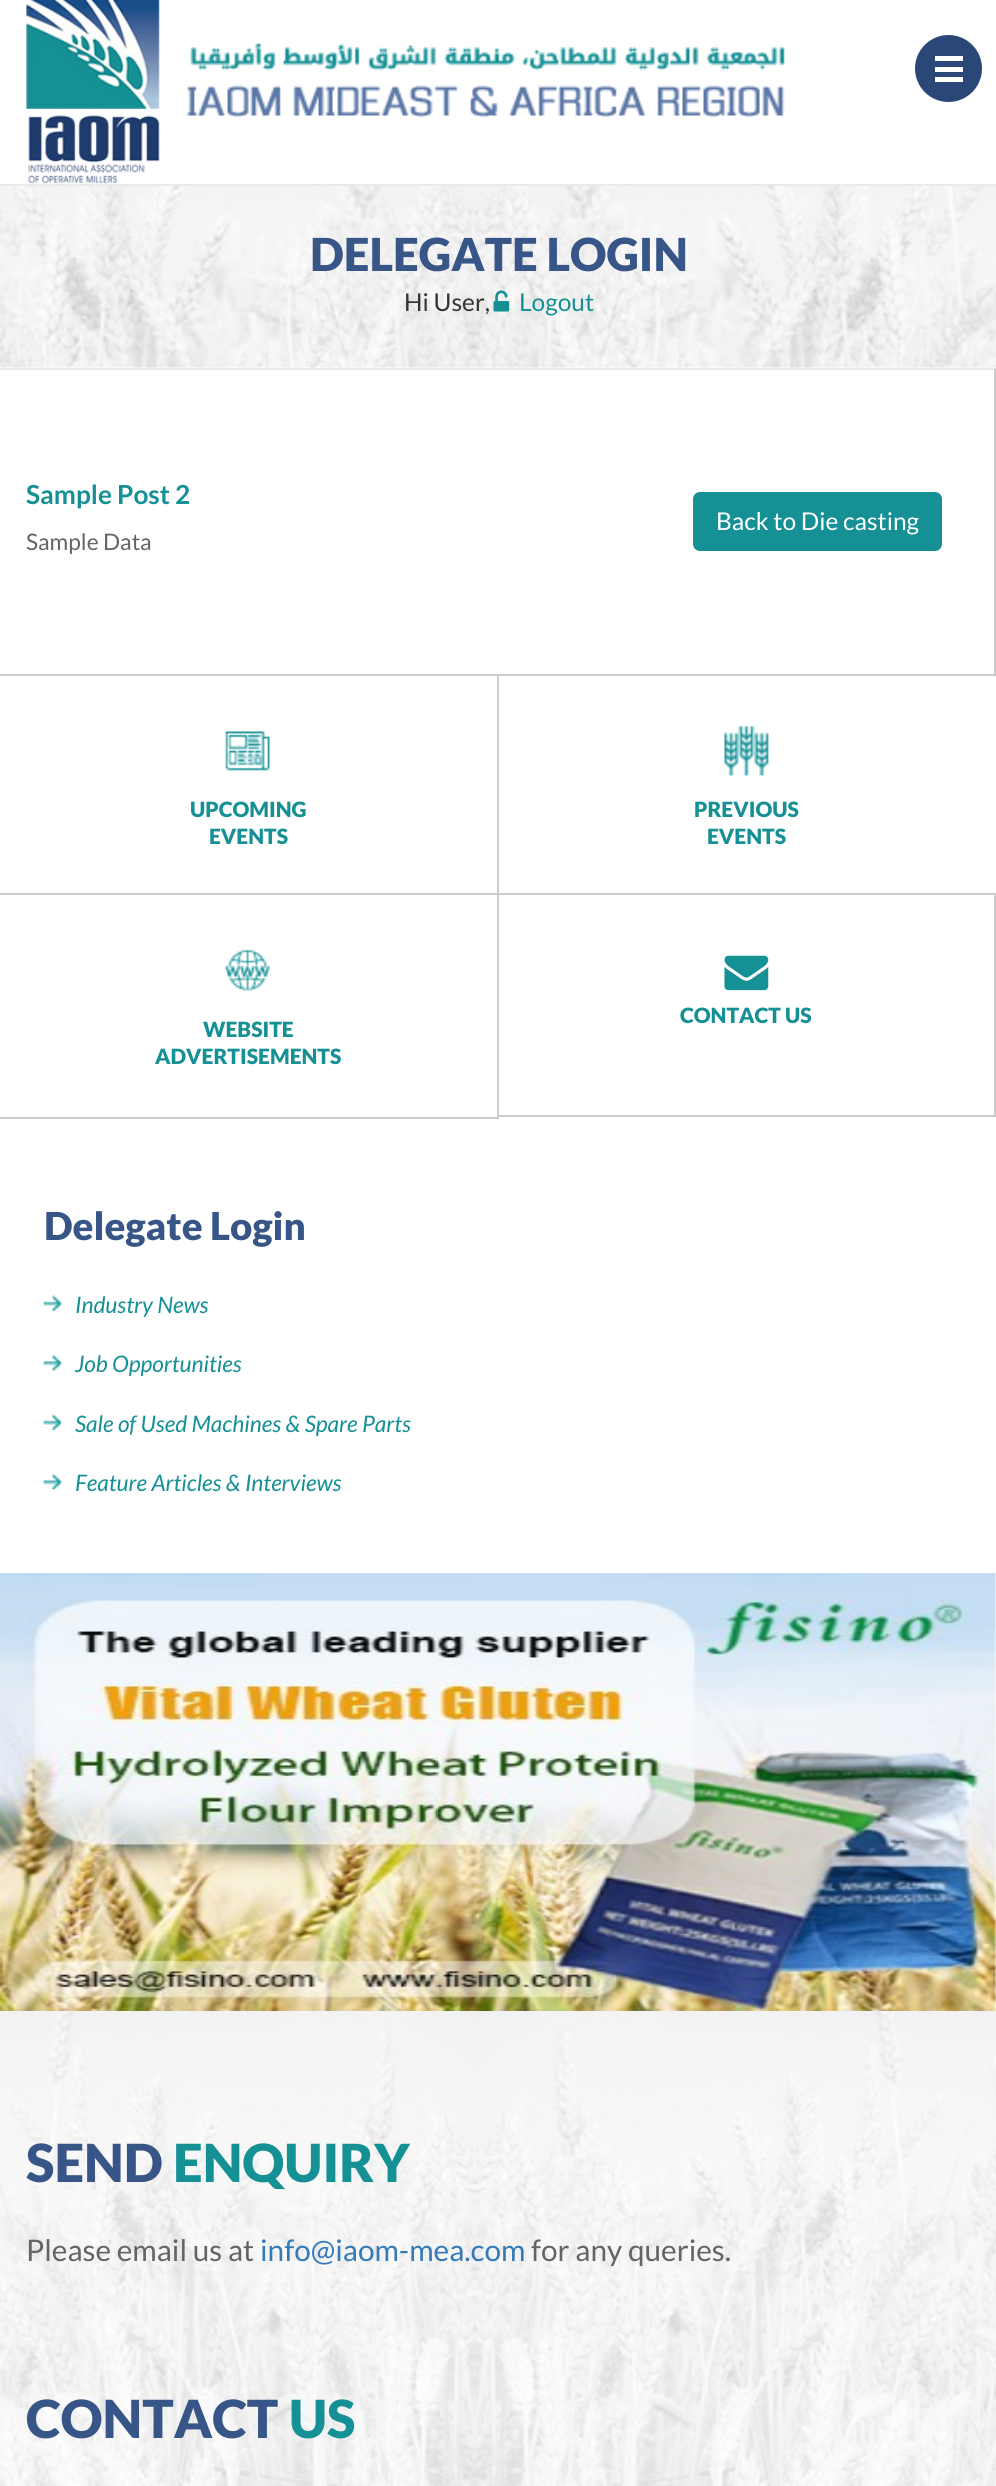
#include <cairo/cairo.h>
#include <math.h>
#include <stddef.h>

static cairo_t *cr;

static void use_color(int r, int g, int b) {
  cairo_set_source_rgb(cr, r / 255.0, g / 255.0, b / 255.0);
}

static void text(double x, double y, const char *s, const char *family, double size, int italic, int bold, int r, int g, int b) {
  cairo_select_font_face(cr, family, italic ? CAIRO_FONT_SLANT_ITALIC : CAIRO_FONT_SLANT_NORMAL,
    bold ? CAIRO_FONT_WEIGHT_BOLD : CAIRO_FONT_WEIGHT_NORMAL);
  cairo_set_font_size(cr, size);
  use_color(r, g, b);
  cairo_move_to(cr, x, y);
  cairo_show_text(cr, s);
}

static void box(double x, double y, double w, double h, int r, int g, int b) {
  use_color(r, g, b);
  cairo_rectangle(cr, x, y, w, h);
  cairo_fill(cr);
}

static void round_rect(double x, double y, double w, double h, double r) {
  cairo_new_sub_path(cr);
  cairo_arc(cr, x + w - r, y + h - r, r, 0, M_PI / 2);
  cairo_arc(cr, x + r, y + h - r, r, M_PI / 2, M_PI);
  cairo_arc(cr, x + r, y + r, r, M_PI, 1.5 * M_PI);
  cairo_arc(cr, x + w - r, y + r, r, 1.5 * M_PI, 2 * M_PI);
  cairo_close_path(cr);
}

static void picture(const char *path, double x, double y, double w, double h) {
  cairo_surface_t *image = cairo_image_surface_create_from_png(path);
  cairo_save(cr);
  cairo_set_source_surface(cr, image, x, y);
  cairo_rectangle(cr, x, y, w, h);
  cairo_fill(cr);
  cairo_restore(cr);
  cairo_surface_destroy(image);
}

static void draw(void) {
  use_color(255, 255, 255);
  cairo_paint(cr);
  picture("img_01.png", 26, 0, 134, 184);
  picture("img_02.png", 187, 43, 598, 75);
  use_color(43, 71, 120);
  cairo_arc(cr, 948.5, 68.5, 33.5, 0, 2 * M_PI);
  cairo_fill(cr);
  box(935, 67, 28, 5, 255, 255, 255);
  box(935, 56, 28, 5, 255, 255, 255);
  box(935, 77, 28, 5, 255, 255, 255);
  picture("img_03.png", 0, 186, 996, 182);
  box(0, 184, 996, 2, 234, 234, 234);
  box(0, 368, 996, 2, 234, 234, 234);
  picture("img_04.png", 493, 290, 17, 22);
  box(994, 369, 2, 305, 204, 204, 204);
  use_color(21, 144, 149);
  round_rect(693, 492, 249, 59, 7);
  cairo_fill(cr);
  box(0, 674, 996, 2, 204, 204, 204);
  box(497, 674, 2, 220, 204, 204, 204);
  box(0, 893, 996, 2, 204, 204, 204);
  picture("img_05.png", 225, 731, 45, 40);
  picture("img_06.png", 724, 725, 45, 51);
  box(994, 894, 2, 223, 204, 204, 204);
  box(499, 1115, 497, 2, 204, 204, 204);
  picture("img_07.png", 724, 955, 45, 36);
  box(497, 894, 2, 224, 204, 204, 204);
  box(0, 1117, 499, 2, 204, 204, 204);
  picture("img_08.png", 225, 949, 45, 42);
  picture("img_09.png", 43, 1295, 19, 16);
  picture("img_10.png", 43, 1354, 19, 17);
  picture("img_09.png", 43, 1414, 19, 16);
  picture("img_10.png", 43, 1473, 19, 17);
  picture("img_12.png", 0, 2010, 996, 476);
  picture("img_11.png", 0, 1573, 996, 438);
  text(310, 271, "DELEGATE LOGIN", "Lato Black", 45.5, 0, 0, 55, 85, 135);
  text(404, 311, "Hi User,", "Lato", 24.5, 0, 0, 51, 51, 51);
  text(519, 311, "Logout", "Lato", 24.5, 0, 0, 21, 144, 149);
  text(26, 504, "Sample Post 2", "Lato", 26.25, 0, 1, 21, 144, 149);
  text(716, 530, "Back to Die casting", "Lato", 24.5, 0, 0, 255, 255, 255);
  text(26, 550, "Sample Data", "Lato", 22.75, 0, 0, 100, 100, 100);
  text(190, 817, "UPCOMING", "Lato Black", 21, 0, 0, 21, 144, 149);
  text(209, 844, "EVENTS", "Lato Black", 21, 0, 0, 21, 144, 149);
  text(694, 817, "PREVIOUS", "Lato Black", 21, 0, 0, 21, 144, 149);
  text(707, 844, "EVENTS", "Lato Black", 21, 0, 0, 21, 144, 149);
  text(680, 1023, "CONTACT US", "Lato Black", 21, 0, 0, 21, 144, 149);
  text(203, 1037, "WEBSITE", "Lato Black", 21, 0, 0, 21, 144, 149);
  text(155, 1064, "ADVERTISEMENTS", "Lato Black", 21, 0, 0, 21, 144, 149);
  text(44, 1240, "Delegate Login", "Lato Black", 38.5, 0, 0, 55, 85, 135);
  text(75, 1313, "Industry News", "Lato", 22.75, 1, 0, 21, 144, 149);
  text(75, 1372, "Job Opportunities", "Lato", 22.75, 1, 0, 21, 144, 149);
  text(75, 1432, "Sale of Used Machines & Spare Parts", "Lato", 22.75, 1, 0, 21, 144, 149);
  text(75, 1491, "Feature Articles & Interviews", "Lato", 22.75, 1, 0, 21, 144, 149);
  text(26, 2182, "SEND", "Lato Black", 52.5, 0, 0, 55, 85, 135);
  text(173, 2182, "ENQUIRY", "Lato Black", 52.5, 0, 0, 21, 144, 149);
  text(26, 2261, "Please email us at", "Lato", 29.75, 0, 0, 100, 100, 100);
  text(260, 2261, "info@iaom-mea.com", "Lato", 29.75, 0, 0, 51, 122, 183);
  text(531, 2261, "for any queries.", "Lato", 29.75, 0, 0, 100, 100, 100);
  text(26, 2438, "CONTACT", "Lato Black", 52.5, 0, 0, 55, 85, 135);
  text(289, 2438, "US", "Lato Black", 52.5, 0, 0, 21, 144, 149);
}

int main(void) {
  cairo_surface_t *surface = cairo_image_surface_create(CAIRO_FORMAT_RGB24, 996, 2486);
  cr = cairo_create(surface);
  cairo_font_options_t *options = cairo_font_options_create();
  cairo_font_options_set_hint_metrics(options, CAIRO_HINT_METRICS_OFF);
  cairo_font_options_set_hint_style(options, CAIRO_HINT_STYLE_NONE);
  cairo_set_font_options(cr, options);
  cairo_set_miter_limit(cr, 4);
  draw();
  cairo_surface_write_to_png(surface, "out.png");
  cairo_font_options_destroy(options);
  cairo_destroy(cr);
  cairo_surface_destroy(surface);
  return 0;
}
